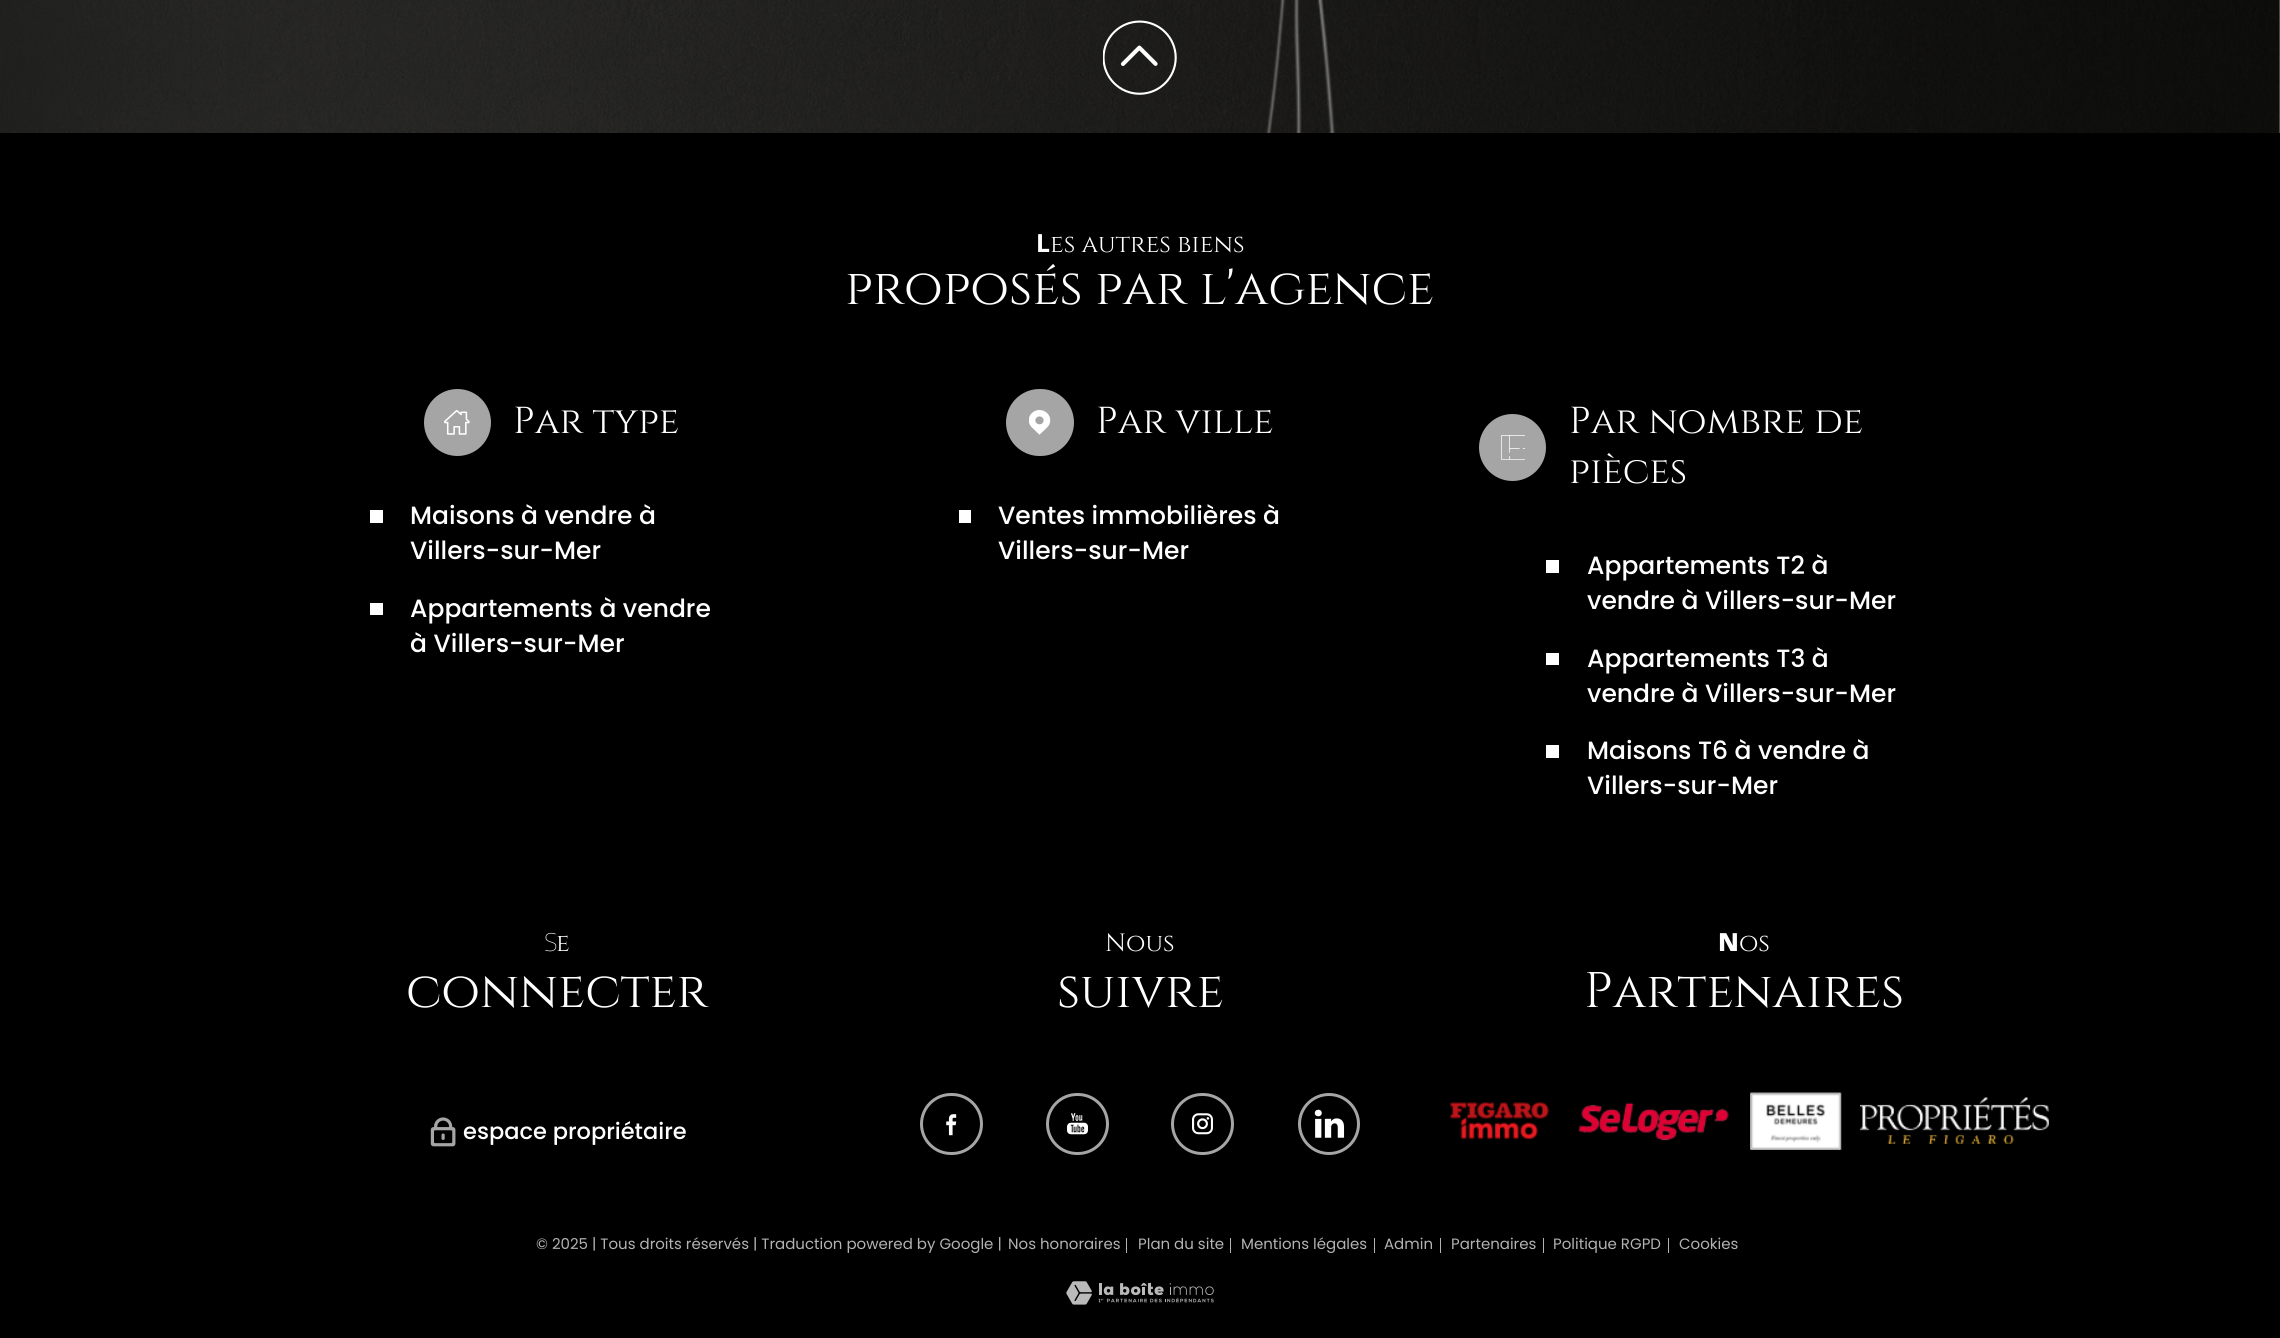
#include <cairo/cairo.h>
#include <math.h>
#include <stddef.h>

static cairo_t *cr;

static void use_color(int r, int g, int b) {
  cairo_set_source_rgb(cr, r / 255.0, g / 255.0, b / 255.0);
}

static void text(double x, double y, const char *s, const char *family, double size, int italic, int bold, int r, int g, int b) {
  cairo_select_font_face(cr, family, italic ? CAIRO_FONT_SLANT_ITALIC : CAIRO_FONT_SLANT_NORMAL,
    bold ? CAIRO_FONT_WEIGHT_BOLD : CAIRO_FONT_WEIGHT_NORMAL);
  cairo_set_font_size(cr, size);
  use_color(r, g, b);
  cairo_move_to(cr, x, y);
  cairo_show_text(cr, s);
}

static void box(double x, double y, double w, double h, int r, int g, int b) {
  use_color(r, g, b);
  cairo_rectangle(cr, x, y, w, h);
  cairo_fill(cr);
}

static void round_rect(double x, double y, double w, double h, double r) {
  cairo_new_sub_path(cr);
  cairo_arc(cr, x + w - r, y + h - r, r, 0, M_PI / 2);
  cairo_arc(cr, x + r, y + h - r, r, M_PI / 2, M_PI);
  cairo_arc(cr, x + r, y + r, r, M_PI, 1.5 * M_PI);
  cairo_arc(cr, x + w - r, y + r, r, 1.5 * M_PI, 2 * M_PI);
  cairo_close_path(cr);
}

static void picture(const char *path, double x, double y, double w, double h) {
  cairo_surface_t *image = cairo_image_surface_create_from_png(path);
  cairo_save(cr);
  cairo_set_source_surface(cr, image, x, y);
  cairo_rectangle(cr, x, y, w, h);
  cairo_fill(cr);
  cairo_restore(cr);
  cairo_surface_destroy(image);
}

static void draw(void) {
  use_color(255, 255, 255);
  cairo_paint(cr);
  picture("img_01.png", 0, 0, 2280, 133);
  picture("img_02.png", 1103, 20, 74, 75);
  box(0, 133, 2280, 1205, 0, 0, 0);
  use_color(165, 165, 165);
  cairo_arc(cr, 457.5, 422.5, 33.5, 0, 2 * M_PI);
  cairo_fill(cr);
  picture("img_03.png", 444, 410, 26, 25);
  box(370, 510, 13, 13, 255, 255, 255);
  box(370, 603, 13, 12, 255, 255, 255);
  use_color(165, 165, 165);
  round_rect(1006, 389, 68, 67, 33.5);
  cairo_fill(cr);
  picture("img_04.png", 1029, 410, 22, 25);
  box(959, 510, 12, 13, 255, 255, 255);
  use_color(165, 165, 165);
  cairo_arc(cr, 1512.5, 447.5, 33.5, 0, 2 * M_PI);
  cairo_fill(cr);
  picture("img_05.png", 1501, 435, 24, 25);
  box(1546, 560, 13, 13, 255, 255, 255);
  box(1546, 653, 13, 12, 255, 255, 255);
  box(1546, 745, 13, 13, 255, 255, 255);
  picture("img_06.png", 430, 1117, 26, 30);
  round_rect(921.5, 1094.5, 60, 59, 29.5);
  use_color(165, 165, 165);
  cairo_set_line_width(cr, 3);
  cairo_stroke(cr);
  picture("img_07.png", 946, 1114, 11, 22);
  round_rect(1047.5, 1094.5, 60, 59, 29.5);
  cairo_stroke(cr);
  picture("img_08.png", 1067, 1113, 21, 22);
  round_rect(1172.5, 1094.5, 60, 59, 29.5);
  cairo_stroke(cr);
  picture("img_09.png", 1192, 1113, 21, 22);
  cairo_arc(cr, 1329, 1124, 29.5, 0, 2 * M_PI);
  cairo_stroke(cr);
  picture("img_10.png", 1314, 1109, 31, 29);
  picture("img_11.png", 1450, 1102, 99, 38);
  picture("img_12.png", 1578, 1102, 151, 39);
  picture("img_13.png", 1750, 1092, 92, 58);
  picture("img_14.png", 1860, 1097, 189, 47);
  box(1126, 1238, 1, 15, 179, 179, 179);
  box(1230, 1238, 1, 15, 179, 179, 179);
  box(1374, 1238, 1, 15, 179, 179, 179);
  box(1440, 1238, 1, 15, 179, 179, 179);
  box(1543, 1238, 1, 15, 179, 179, 179);
  box(1668, 1238, 1, 15, 179, 179, 179);
  picture("img_15.png", 1066, 1281, 148, 24);
  text(1036, 252, "L", "Noto Sans", 25, 0, 1, 255, 255, 255);
  text(1050, 252, "es autres biens", "Cinzel", 25, 0, 0, 255, 255, 255);
  text(845, 304, "proposés par l'agence", "Cinzel", 50, 0, 0, 255, 255, 255);
  text(513, 433, "Par type", "Cinzel", 37.5, 0, 0, 255, 255, 255);
  text(410, 524, "Maisons à vendre à", "Poppins Medium", 25, 0, 0, 255, 255, 255);
  text(410, 559, "Villers-sur-Mer", "Poppins Medium", 25, 0, 0, 255, 255, 255);
  text(410, 617, "Appartements à vendre", "Poppins Medium", 25, 0, 0, 255, 255, 255);
  text(410, 652, "à Villers-sur-Mer", "Poppins Medium", 25, 0, 0, 255, 255, 255);
  text(1096, 433, "Par ville", "Cinzel", 37.5, 0, 0, 255, 255, 255);
  text(998, 524, "Ventes immobilières à", "Poppins Medium", 25, 0, 0, 255, 255, 255);
  text(998, 559, "Villers-sur-Mer", "Poppins Medium", 25, 0, 0, 255, 255, 255);
  text(1569, 433, "Par nombre de", "Cinzel", 37.5, 0, 0, 255, 255, 255);
  text(1569, 483, "pièces", "Cinzel", 37.5, 0, 0, 255, 255, 255);
  text(1587, 574, "Appartements T2 à", "Poppins Medium", 25, 0, 0, 255, 255, 255);
  text(1587, 609, "vendre à Villers-sur-Mer", "Poppins Medium", 25, 0, 0, 255, 255, 255);
  text(1587, 667, "Appartements T3 à", "Poppins Medium", 25, 0, 0, 255, 255, 255);
  text(1587, 702, "vendre à Villers-sur-Mer", "Poppins Medium", 25, 0, 0, 255, 255, 255);
  text(1587, 759, "Maisons T6 à vendre à", "Poppins Medium", 25, 0, 0, 255, 255, 255);
  text(1587, 794, "Villers-sur-Mer", "Poppins Medium", 25, 0, 0, 255, 255, 255);
  text(544, 951, "S", "Noto Sans Thin", 25, 0, 0, 255, 255, 255);
  text(556, 951, "e", "Cinzel", 25, 0, 0, 255, 255, 255);
  text(406, 1007, "connecter", "Cinzel", 50, 0, 0, 255, 255, 255);
  text(463, 1139, "espace propriétaire", "Poppins Medium", 22.5, 0, 0, 255, 255, 255);
  text(1105, 951, "Nous", "Cinzel", 25, 0, 0, 255, 255, 255);
  text(1057, 1007, "suivre", "Cinzel", 50, 0, 0, 255, 255, 255);
  text(1718, 951, "N", "Noto Sans Black", 25, 0, 0, 255, 255, 255);
  text(1739, 951, "os", "Cinzel", 25, 0, 0, 255, 255, 255);
  text(1584, 1007, "Partenaires", "Cinzel", 50, 0, 0, 255, 255, 255);
  text(536, 1249, "© 2025 | Tous droits réservés | Traduction powered by Google |", "Poppins", 15, 0, 0, 179, 179, 179);
  text(1008, 1249, "Nos honoraires", "Poppins", 15, 0, 0, 179, 179, 179);
  text(1138, 1249, "Plan du site", "Poppins", 15, 0, 0, 179, 179, 179);
  text(1241, 1249, "Mentions légales", "Poppins", 15, 0, 0, 179, 179, 179);
  text(1384, 1249, "Admin", "Poppins", 15, 0, 0, 179, 179, 179);
  text(1451, 1249, "Partenaires", "Poppins", 15, 0, 0, 179, 179, 179);
  text(1553, 1249, "Politique RGPD", "Poppins", 15, 0, 0, 179, 179, 179);
  text(1679, 1249, "Cookies", "Poppins", 15, 0, 0, 179, 179, 179);
}

int main(void) {
  cairo_surface_t *surface = cairo_image_surface_create(CAIRO_FORMAT_RGB24, 2280, 1338);
  cr = cairo_create(surface);
  cairo_font_options_t *options = cairo_font_options_create();
  cairo_font_options_set_hint_metrics(options, CAIRO_HINT_METRICS_OFF);
  cairo_font_options_set_hint_style(options, CAIRO_HINT_STYLE_NONE);
  cairo_set_font_options(cr, options);
  cairo_set_miter_limit(cr, 4);
  draw();
  cairo_surface_write_to_png(surface, "out.png");
  cairo_font_options_destroy(options);
  cairo_destroy(cr);
  cairo_surface_destroy(surface);
  return 0;
}
